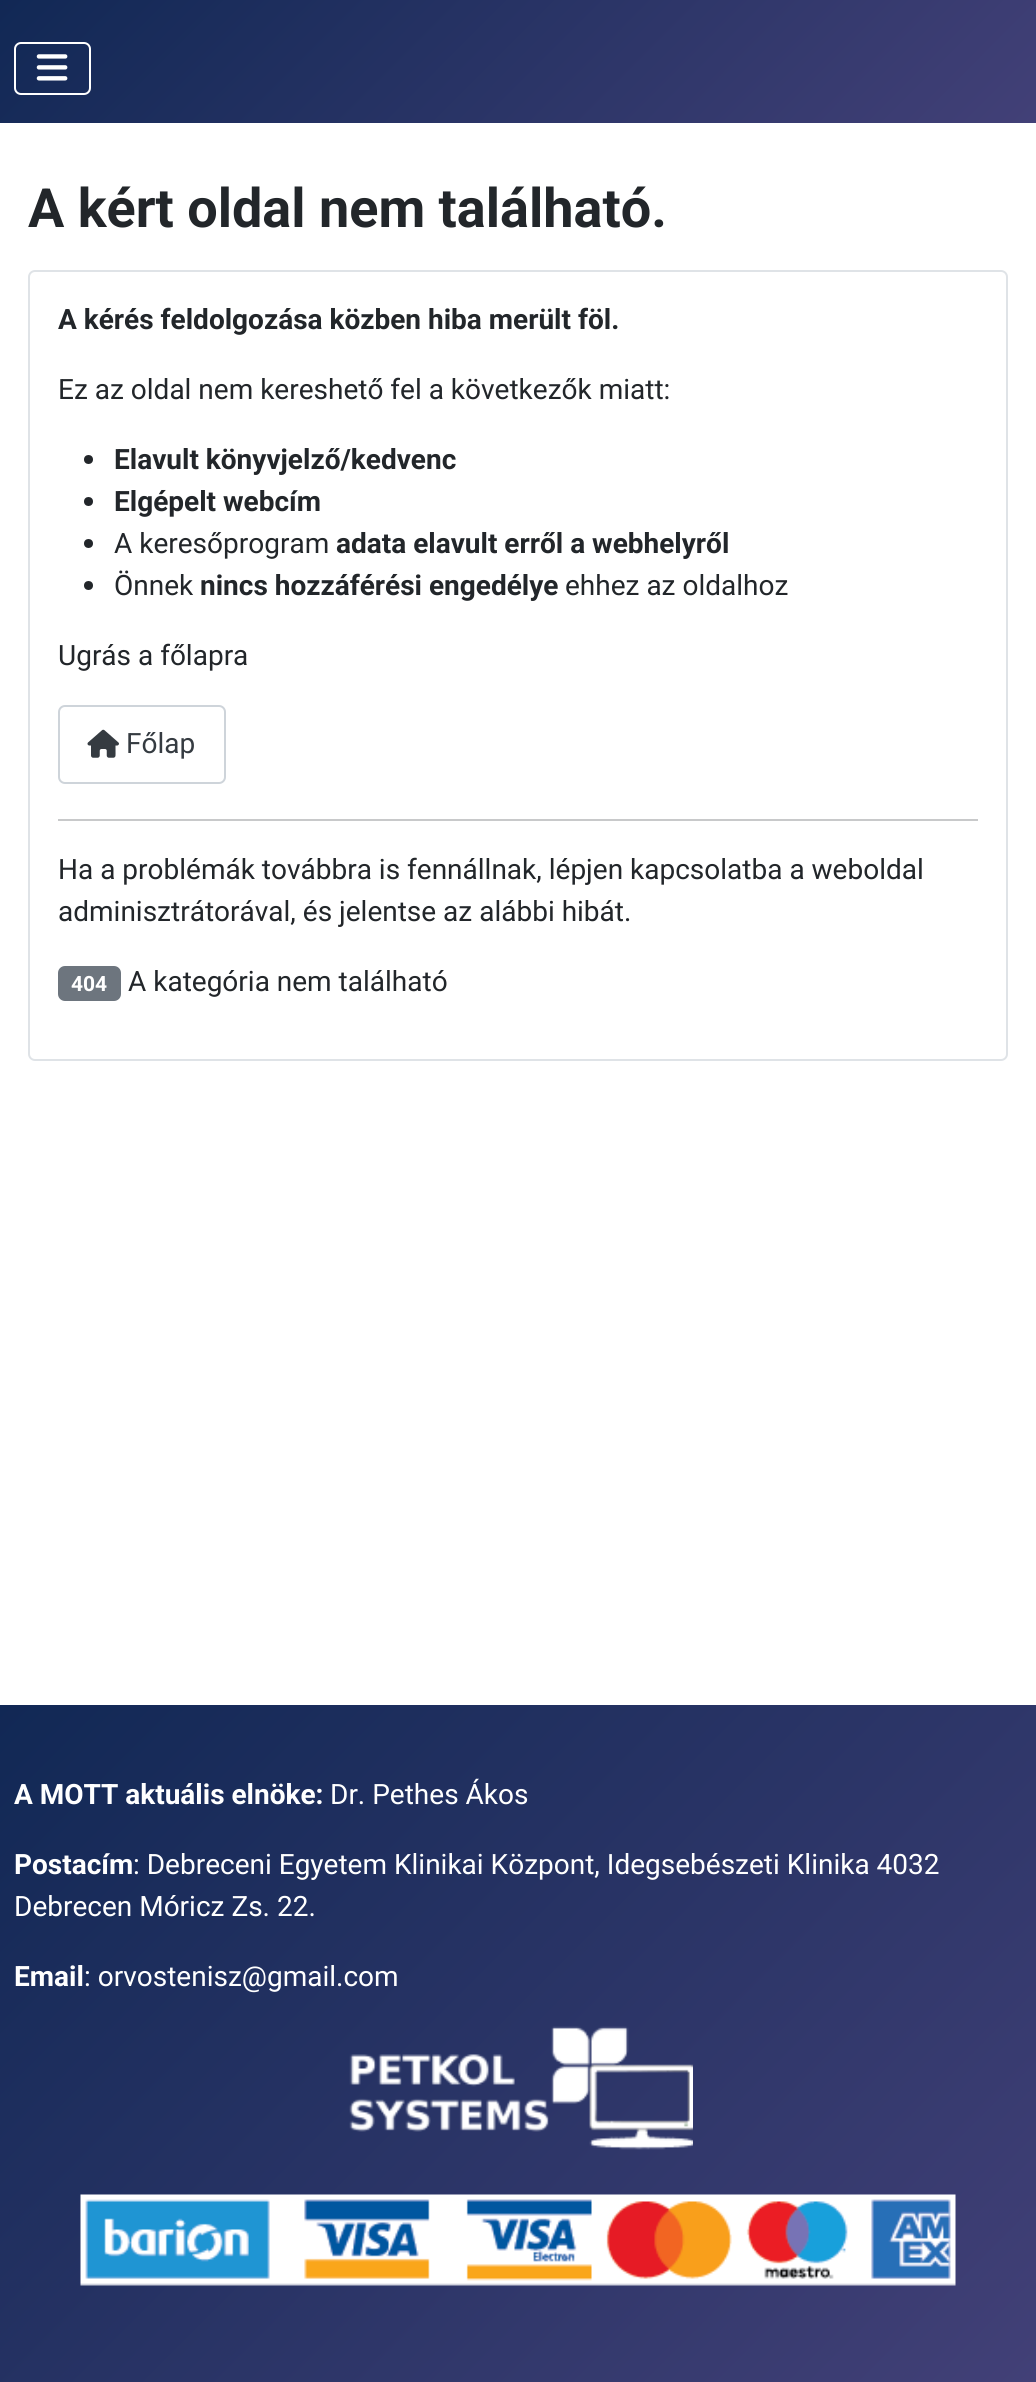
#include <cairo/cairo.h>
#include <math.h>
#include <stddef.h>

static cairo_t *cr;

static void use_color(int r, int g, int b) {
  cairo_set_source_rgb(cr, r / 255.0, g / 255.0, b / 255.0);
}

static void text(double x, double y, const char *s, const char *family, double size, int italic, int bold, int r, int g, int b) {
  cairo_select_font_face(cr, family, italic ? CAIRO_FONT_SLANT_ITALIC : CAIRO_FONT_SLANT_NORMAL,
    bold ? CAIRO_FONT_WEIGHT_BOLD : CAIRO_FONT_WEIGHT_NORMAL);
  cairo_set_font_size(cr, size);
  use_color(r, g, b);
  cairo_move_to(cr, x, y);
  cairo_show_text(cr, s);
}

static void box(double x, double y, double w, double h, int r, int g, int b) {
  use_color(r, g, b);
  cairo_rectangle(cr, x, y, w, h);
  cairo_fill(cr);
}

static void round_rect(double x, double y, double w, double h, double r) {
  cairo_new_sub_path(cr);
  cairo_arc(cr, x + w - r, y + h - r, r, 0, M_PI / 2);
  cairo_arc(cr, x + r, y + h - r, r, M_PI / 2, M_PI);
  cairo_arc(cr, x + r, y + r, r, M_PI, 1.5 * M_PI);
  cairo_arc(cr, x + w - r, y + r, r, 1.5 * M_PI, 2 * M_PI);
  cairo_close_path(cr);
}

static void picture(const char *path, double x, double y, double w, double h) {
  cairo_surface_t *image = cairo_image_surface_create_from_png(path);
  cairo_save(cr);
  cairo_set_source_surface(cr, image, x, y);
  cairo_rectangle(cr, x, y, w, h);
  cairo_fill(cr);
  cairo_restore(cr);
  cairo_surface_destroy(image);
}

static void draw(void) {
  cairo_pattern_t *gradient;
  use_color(255, 255, 255);
  cairo_paint(cr);
  gradient = cairo_pattern_create_linear(228, -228, 808, 351);
  cairo_pattern_add_color_stop_rgba(gradient, 0, 0.067, 0.157, 0.333, 1);
  cairo_pattern_add_color_stop_rgba(gradient, 1, 0.259, 0.251, 0.467, 1);
  cairo_set_source(cr, gradient);
  cairo_pattern_destroy(gradient);
  cairo_rectangle(cr, 0, 0, 1036, 123);
  cairo_fill(cr);
  round_rect(15, 43, 75, 51, 6);
  use_color(255, 255, 255);
  cairo_stroke(cr);
  picture("img_01.png", 36, 54, 32, 27);
  round_rect(29, 271, 978, 789, 6);
  use_color(223, 227, 231);
  cairo_stroke(cr);
  use_color(34, 38, 42);
  cairo_arc(cr, 88.5, 459.5, 4.5, 0, 2 * M_PI);
  cairo_fill(cr);
  cairo_arc(cr, 88.5, 501.5, 4.5, 0, 2 * M_PI);
  cairo_fill(cr);
  cairo_arc(cr, 88.5, 543.5, 4.5, 0, 2 * M_PI);
  cairo_fill(cr);
  cairo_arc(cr, 88.5, 585.5, 4.5, 0, 2 * M_PI);
  cairo_fill(cr);
  round_rect(59, 706, 166, 77, 6);
  use_color(206, 212, 218);
  cairo_stroke(cr);
  picture("img_02.png", 87, 729, 32, 29);
  box(58, 819, 920, 2, 200, 201, 202);
  use_color(109, 117, 126);
  round_rect(58, 966, 63, 35, 7);
  cairo_fill(cr);
  gradient = cairo_pattern_create_linear(89, 1615, 947, 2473);
  cairo_pattern_add_color_stop_rgba(gradient, 0, 0.067, 0.157, 0.333, 1);
  cairo_pattern_add_color_stop_rgba(gradient, 1, 0.259, 0.251, 0.467, 1);
  cairo_set_source(cr, gradient);
  cairo_pattern_destroy(gradient);
  cairo_rectangle(cr, 0, 1705, 1036, 677);
  cairo_fill(cr);
  picture("img_03.png", 349, 2026, 344, 124);
  picture("img_04.png", 80, 2194, 876, 92);
  text(28, 227, "A kért oldal nem található.", "Roboto", 54, 0, 1, 34, 38, 42);
  text(58, 329, "A kérés feldolgozása közben hiba merült föl.", "Roboto", 28, 0, 1, 34, 38, 42);
  text(58, 399, "Ez az oldal nem kereshető fel a következők miatt:", "Roboto", 28, 0, 0, 34, 38, 42);
  text(114, 469, "Elavult könyvjelző/kedvenc", "Roboto", 28, 0, 1, 34, 38, 42);
  text(114, 511, "Elgépelt webcím", "Roboto", 28, 0, 1, 34, 38, 42);
  text(114, 553, "A keresőprogram", "Roboto", 28, 0, 0, 34, 38, 42);
  text(336, 553, "adata elavult erről a webhelyről", "Roboto", 28, 0, 1, 34, 38, 42);
  text(114, 595, "Önnek", "Roboto", 28, 0, 0, 34, 38, 42);
  text(200, 595, "nincs hozzáférési engedélye", "Roboto", 28, 0, 1, 34, 38, 42);
  text(565, 595, "ehhez az oldalhoz", "Roboto", 28, 0, 0, 34, 38, 42);
  text(58, 665, "Ugrás a főlapra", "Roboto", 28, 0, 0, 34, 38, 42);
  text(126, 753, "Főlap", "Roboto", 28, 0, 0, 53, 59, 65);
  text(58, 879, "Ha a problémák továbbra is fennállnak, lépjen kapcsolatba a weboldal", "Roboto", 28, 0, 0, 34, 38, 42);
  text(58, 921, "adminisztrátorával, és jelentse az alábbi hibát.", "Roboto", 28, 0, 0, 34, 38, 42);
  text(71, 991, "404", "Roboto", 21, 0, 1, 255, 255, 255);
  text(128, 991, "A kategória nem található", "Roboto", 28, 0, 0, 34, 38, 42);
  text(14, 1804, "A MOTT aktuális elnöke:", "Roboto", 28, 0, 1, 255, 255, 255);
  text(330, 1804, "Dr. Pethes Ákos", "Roboto", 28, 0, 0, 255, 255, 255);
  text(14, 1874, "Postacím", "Roboto", 28, 0, 1, 255, 255, 255);
  text(133, 1874, ": Debreceni Egyetem Klinikai Központ, Idegsebészeti Klinika 4032", "Roboto", 28, 0, 0, 255, 255, 255);
  text(14, 1916, "Debrecen Móricz Zs. 22.", "Roboto", 28, 0, 0, 255, 255, 255);
  text(14, 1986, "Email", "Roboto", 28, 0, 1, 255, 255, 255);
  text(84, 1986, ": orvostenisz@gmail.com", "Roboto", 28, 0, 0, 255, 255, 255);
}

int main(void) {
  cairo_surface_t *surface = cairo_image_surface_create(CAIRO_FORMAT_RGB24, 1036, 2382);
  cr = cairo_create(surface);
  cairo_font_options_t *options = cairo_font_options_create();
  cairo_font_options_set_hint_metrics(options, CAIRO_HINT_METRICS_OFF);
  cairo_font_options_set_hint_style(options, CAIRO_HINT_STYLE_NONE);
  cairo_set_font_options(cr, options);
  cairo_set_miter_limit(cr, 4);
  draw();
  cairo_surface_write_to_png(surface, "out.png");
  cairo_font_options_destroy(options);
  cairo_destroy(cr);
  cairo_surface_destroy(surface);
  return 0;
}
